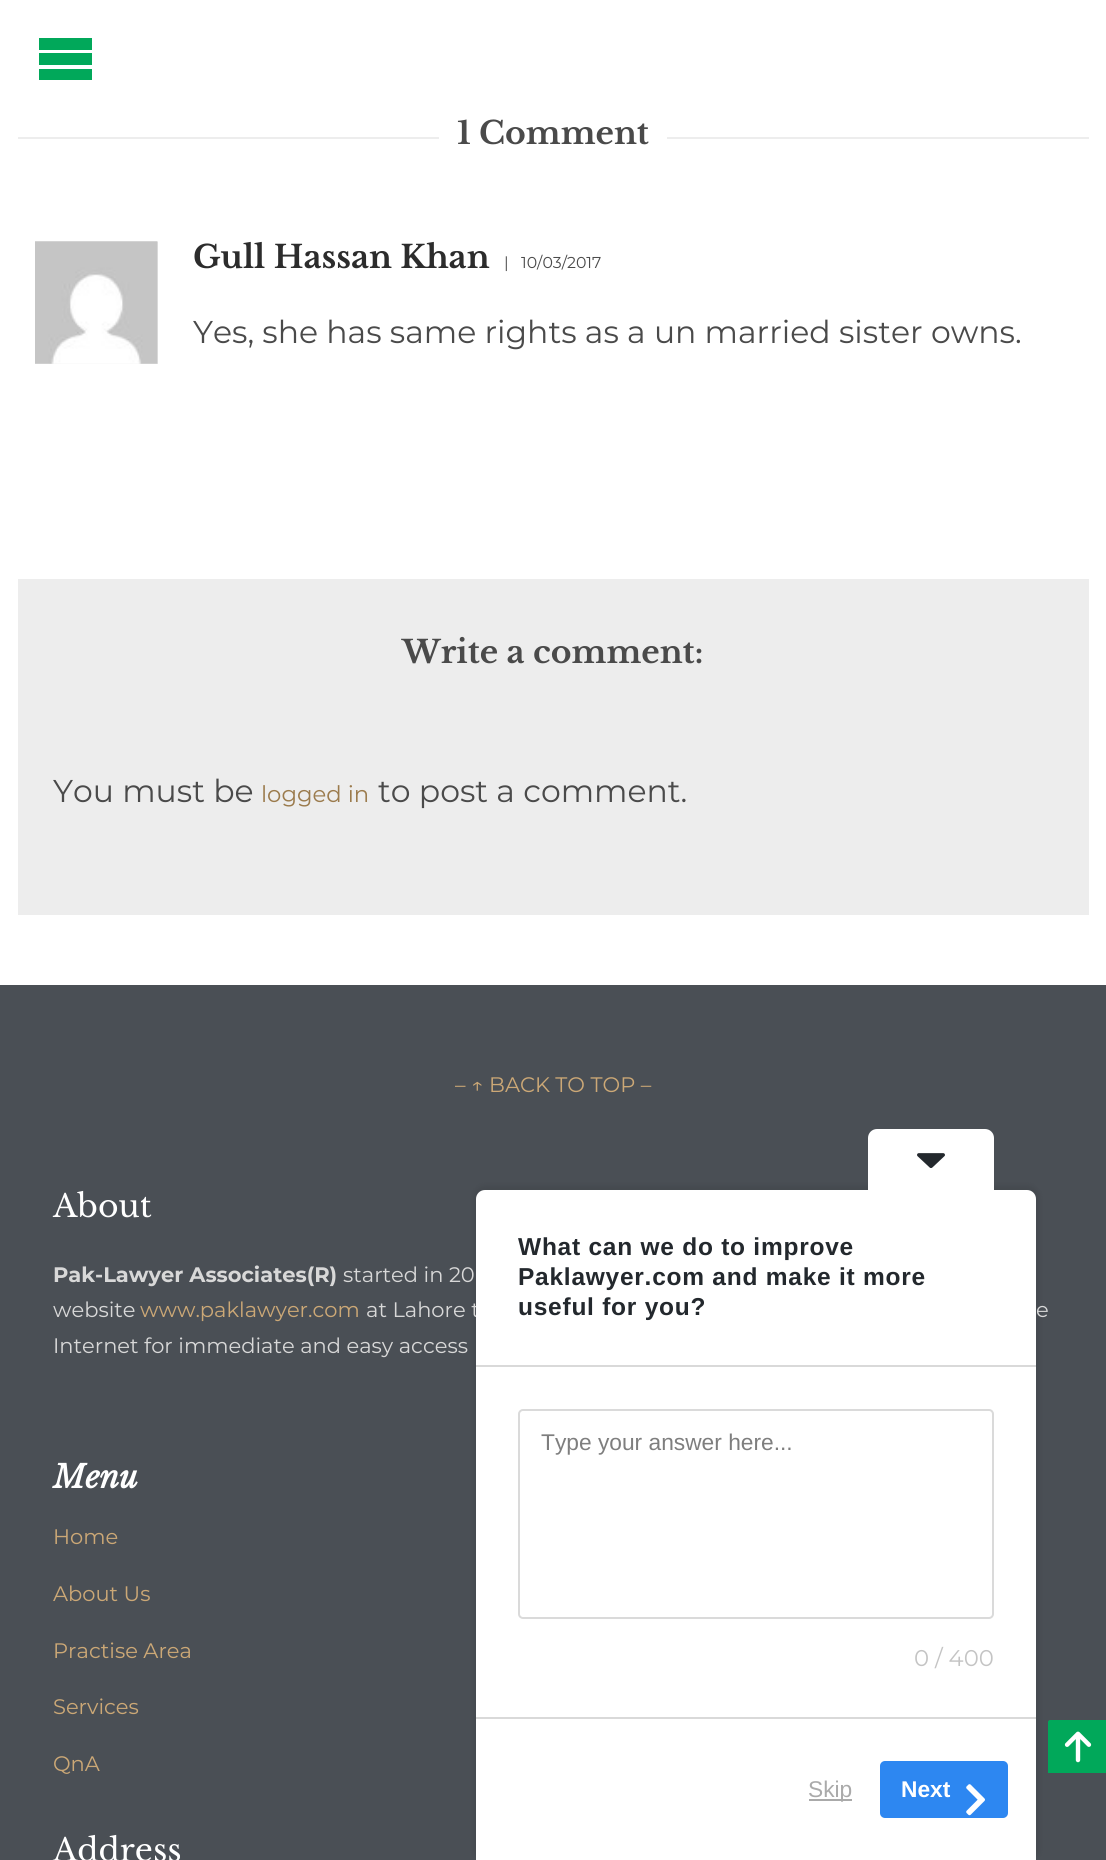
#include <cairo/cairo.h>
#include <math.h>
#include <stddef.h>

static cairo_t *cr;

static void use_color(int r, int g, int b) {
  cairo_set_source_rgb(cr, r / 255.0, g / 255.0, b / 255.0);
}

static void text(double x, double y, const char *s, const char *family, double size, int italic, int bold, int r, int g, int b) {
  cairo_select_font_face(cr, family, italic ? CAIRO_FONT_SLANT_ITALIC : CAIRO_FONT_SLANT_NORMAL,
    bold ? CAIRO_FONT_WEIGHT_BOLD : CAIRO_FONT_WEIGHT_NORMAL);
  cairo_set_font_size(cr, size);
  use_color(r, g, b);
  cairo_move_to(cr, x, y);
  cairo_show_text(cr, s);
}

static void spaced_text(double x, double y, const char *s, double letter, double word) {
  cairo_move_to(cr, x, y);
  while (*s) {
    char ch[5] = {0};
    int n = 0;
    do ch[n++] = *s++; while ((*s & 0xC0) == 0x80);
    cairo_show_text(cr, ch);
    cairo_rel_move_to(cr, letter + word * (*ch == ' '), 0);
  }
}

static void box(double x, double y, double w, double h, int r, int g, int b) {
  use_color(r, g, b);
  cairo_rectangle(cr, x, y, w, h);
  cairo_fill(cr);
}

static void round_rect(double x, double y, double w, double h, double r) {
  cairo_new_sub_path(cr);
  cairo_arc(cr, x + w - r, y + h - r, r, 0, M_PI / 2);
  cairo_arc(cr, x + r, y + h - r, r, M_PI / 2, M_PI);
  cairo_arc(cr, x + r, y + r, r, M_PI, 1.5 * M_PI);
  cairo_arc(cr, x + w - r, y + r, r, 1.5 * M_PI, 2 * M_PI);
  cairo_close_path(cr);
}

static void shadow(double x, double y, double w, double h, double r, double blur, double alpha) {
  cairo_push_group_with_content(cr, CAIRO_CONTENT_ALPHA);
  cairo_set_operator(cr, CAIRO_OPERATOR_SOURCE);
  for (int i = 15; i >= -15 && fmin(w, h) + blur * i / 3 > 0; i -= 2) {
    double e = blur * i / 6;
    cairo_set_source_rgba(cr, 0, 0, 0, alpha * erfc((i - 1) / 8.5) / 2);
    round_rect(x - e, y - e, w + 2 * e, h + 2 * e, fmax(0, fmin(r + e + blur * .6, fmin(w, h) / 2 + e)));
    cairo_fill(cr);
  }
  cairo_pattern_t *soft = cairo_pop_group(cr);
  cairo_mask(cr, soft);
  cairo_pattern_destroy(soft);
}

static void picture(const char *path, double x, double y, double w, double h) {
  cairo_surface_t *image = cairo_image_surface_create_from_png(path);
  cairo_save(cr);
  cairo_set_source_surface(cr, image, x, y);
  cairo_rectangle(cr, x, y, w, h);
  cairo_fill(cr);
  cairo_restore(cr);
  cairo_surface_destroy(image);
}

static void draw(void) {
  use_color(74, 79, 85);
  cairo_paint(cr);
  box(0, 0, 1106, 985, 255, 255, 255);
  use_color(1, 168, 90);
  cairo_new_path(cr);
  cairo_move_to(cr, 39, 38);
  cairo_line_to(cr, 92, 38);
  cairo_line_to(cr, 92, 50);
  cairo_line_to(cr, 39, 50);
  cairo_close_path(cr);
  cairo_move_to(cr, 39, 53);
  cairo_line_to(cr, 92, 53);
  cairo_line_to(cr, 92, 65);
  cairo_line_to(cr, 39, 65);
  cairo_close_path(cr);
  cairo_move_to(cr, 39, 69);
  cairo_line_to(cr, 92, 69);
  cairo_line_to(cr, 92, 80);
  cairo_line_to(cr, 39, 80);
  cairo_close_path(cr);
  cairo_fill(cr);
  box(18, 137, 421, 2, 237, 237, 237);
  box(667, 137, 422, 2, 237, 237, 237);
  box(35, 242, 123, 122, 237, 237, 237);
  picture("img_01.png", 35, 241, 123, 123);
  box(18, 579, 1071, 336, 237, 237, 237);
  use_color(1, 168, 90);
  cairo_new_path(cr);
  cairo_move_to(cr, 1050, 1720);
  cairo_line_to(cr, 1106, 1720);
  cairo_line_to(cr, 1106, 1773);
  cairo_line_to(cr, 1048, 1773);
  cairo_line_to(cr, 1048, 1722);
  cairo_curve_to(cr, 1048, 1721, 1049, 1720, 1050, 1720);
  cairo_close_path(cr);
  cairo_fill(cr);
  use_color(0, 0, 0);
  shadow(473, 1185, 567, 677, 12, 2.5, 0.07);
  use_color(255, 255, 255);
  cairo_new_path(cr);
  cairo_move_to(cr, 877, 1129);
  cairo_line_to(cr, 985, 1129);
  cairo_curve_to(cr, 990, 1129, 994, 1133, 994, 1138);
  cairo_line_to(cr, 994, 1190);
  cairo_line_to(cr, 868, 1190);
  cairo_line_to(cr, 868, 1138);
  cairo_curve_to(cr, 868, 1133, 872, 1129, 877, 1129);
  cairo_close_path(cr);
  cairo_fill(cr);
  picture("img_02.png", 917, 1153, 28, 15);
  picture("img_04.png", 1064, 1731, 28, 32);
  text(457, 144, "1 Comment", "Libre Baskerville", 31.5, 0, 1, 74, 74, 74);
  text(193, 268, "Gull Hassan Khan", "Libre Baskerville", 31.5, 0, 1, 44, 44, 44);
  text(504, 268, "|", "Montserrat", 15.75, 0, 0, 74, 74, 74);
  text(521, 268, "10/03/2017", "Montserrat", 15.75, 0, 0, 74, 74, 74);
  text(193, 343, "Yes, she has same rights as a un married sister owns.", "Montserrat", 31.5, 0, 0, 74, 74, 74);
  text(402, 663, "Write a comment:", "Libre Baskerville", 31.5, 0, 1, 74, 74, 74);
  text(53, 802, "You must be", "Montserrat", 31.5, 0, 0, 74, 74, 74);
  text(261, 802, "logged in", "Montserrat", 22.75, 0, 0, 155, 123, 77);
  text(378, 802, "to post a comment.", "Montserrat", 31.5, 0, 0, 74, 74, 74);
  text(455, 1092, "– ↑ BACK TO TOP –", "Montserrat", 21, 0, 0, 204, 168, 118);
  text(53, 1217, "About", "Libre Baskerville", 31.5, 0, 0, 255, 255, 255);
  text(53, 1282, "Pak-Lawyer Associates(R)", "Montserrat", 21, 0, 1, 216, 216, 216);
  text(343, 1282, "started in 20", "Montserrat", 21, 0, 0, 216, 216, 216);
  text(53, 1317, "website", "Montserrat", 21, 0, 0, 216, 216, 216);
  text(140, 1317, "www.paklawyer.com", "Montserrat", 21, 0, 0, 204, 168, 118);
  text(366, 1317, "at Lahore t", "Montserrat", 21, 0, 0, 216, 216, 216);
  text(1036, 1317, "e", "Montserrat", 21, 0, 0, 216, 216, 216);
  text(53, 1353, "Internet for immediate and easy access", "Montserrat", 21, 0, 0, 216, 216, 216);
  text(53, 1488, "Menu", "Libre Baskerville", 31.5, 1, 1, 255, 255, 255);
  text(53, 1544, "Home", "Montserrat", 21, 0, 0, 204, 168, 118);
  text(53, 1601, "About Us", "Montserrat", 21, 0, 0, 204, 168, 118);
  text(53, 1658, "Practise Area", "Montserrat", 21, 0, 0, 204, 168, 118);
  text(53, 1714, "Services", "Montserrat", 21, 0, 0, 204, 168, 118);
  text(53, 1771, "QnA", "Montserrat", 21, 0, 0, 204, 168, 118);
  text(53, 1861, "Address", "Libre Baskerville", 31.5, 0, 0, 255, 255, 255);
  cairo_new_path(cr);
  cairo_move_to(cr, 485, 1190);
  cairo_line_to(cr, 1027, 1190);
  cairo_curve_to(cr, 1032, 1190, 1036, 1194, 1036, 1199);
  cairo_line_to(cr, 1036, 1860);
  cairo_line_to(cr, 476, 1860);
  cairo_line_to(cr, 476, 1199);
  cairo_curve_to(cr, 476, 1194, 480, 1190, 485, 1190);
  cairo_close_path(cr);
  cairo_fill(cr);
  cairo_select_font_face(cr, "Liberation Sans", CAIRO_FONT_SLANT_NORMAL, CAIRO_FONT_WEIGHT_BOLD);
  cairo_set_font_size(cr, 24.5);
  use_color(35, 40, 45);
  spaced_text(518, 1255, "What can we do to improve", 0.75, 0);
  spaced_text(518, 1285, "Paklawyer.com and make it more", 0.75, 0);
  spaced_text(518, 1315, "useful for you?", 0.75, 0);
  box(476, 1365, 560, 2, 217, 217, 217);
  box(476, 1717, 560, 2, 217, 217, 217);
  round_rect(519, 1410, 474, 208, 4);
  use_color(218, 218, 218);
  cairo_stroke(cr);
  text(541, 1450, "Type your answer here...", "Liberation Sans", 22.75, 0, 0, 126, 126, 126);
  text(914, 1666, "0 / 400", "Montserrat", 22.75, 0, 0, 196, 196, 196);
  box(809, 1799, 43, 2, 170, 170, 170);
  text(808, 1797, "Skip", "Liberation Sans", 22.75, 0, 0, 170, 170, 170);
  use_color(45, 135, 241);
  round_rect(880, 1761, 128, 57, 5);
  cairo_fill(cr);
  text(901, 1797, "Next", "Liberation Sans", 22.75, 0, 1, 255, 255, 255);
  picture("img_03.png", 966, 1784, 19, 32);
}

int main(void) {
  cairo_surface_t *surface = cairo_image_surface_create(CAIRO_FORMAT_RGB24, 1106, 1860);
  cr = cairo_create(surface);
  cairo_font_options_t *options = cairo_font_options_create();
  cairo_font_options_set_hint_metrics(options, CAIRO_HINT_METRICS_OFF);
  cairo_font_options_set_hint_style(options, CAIRO_HINT_STYLE_NONE);
  cairo_set_font_options(cr, options);
  cairo_set_miter_limit(cr, 4);
  draw();
  cairo_surface_write_to_png(surface, "out.png");
  cairo_font_options_destroy(options);
  cairo_destroy(cr);
  cairo_surface_destroy(surface);
  return 0;
}
